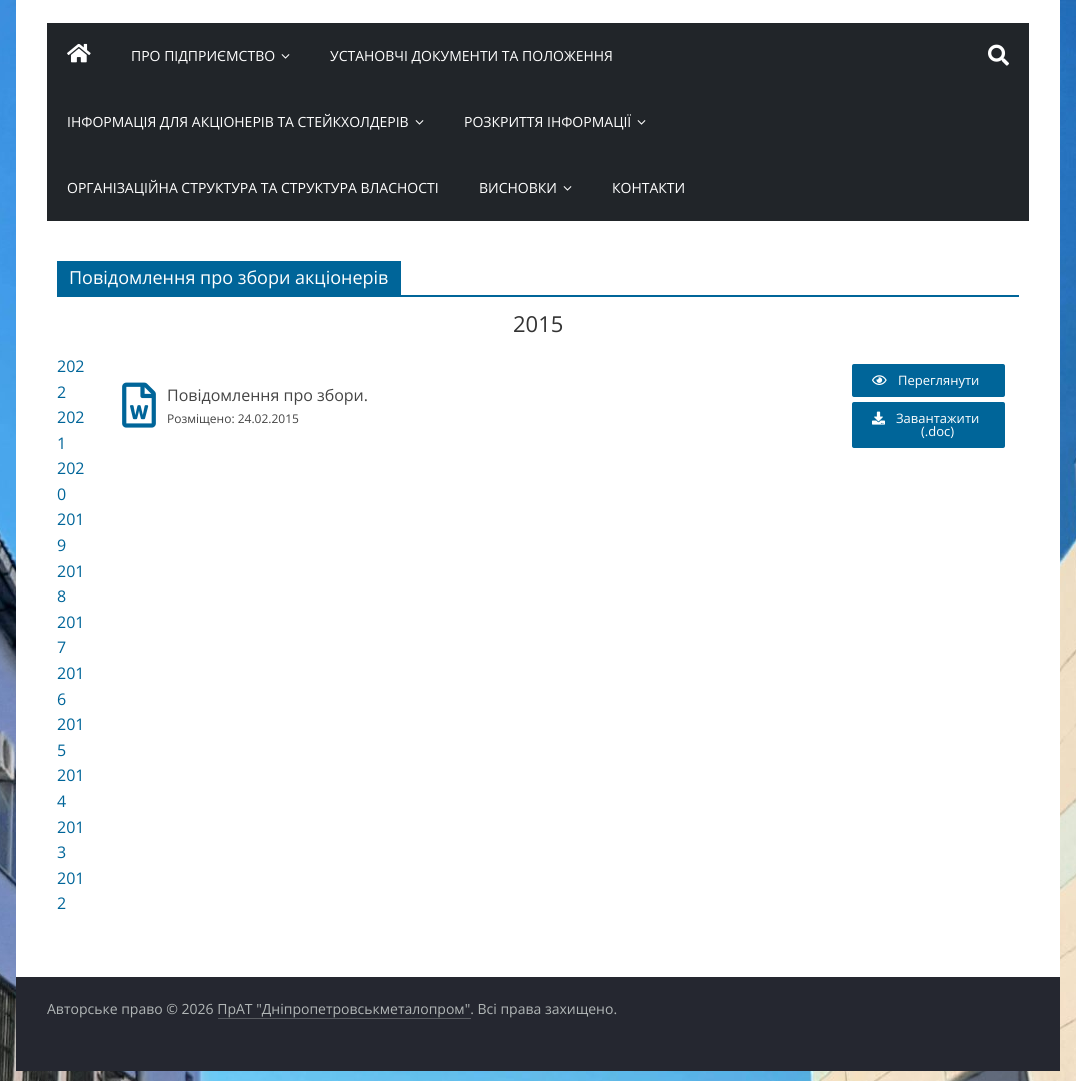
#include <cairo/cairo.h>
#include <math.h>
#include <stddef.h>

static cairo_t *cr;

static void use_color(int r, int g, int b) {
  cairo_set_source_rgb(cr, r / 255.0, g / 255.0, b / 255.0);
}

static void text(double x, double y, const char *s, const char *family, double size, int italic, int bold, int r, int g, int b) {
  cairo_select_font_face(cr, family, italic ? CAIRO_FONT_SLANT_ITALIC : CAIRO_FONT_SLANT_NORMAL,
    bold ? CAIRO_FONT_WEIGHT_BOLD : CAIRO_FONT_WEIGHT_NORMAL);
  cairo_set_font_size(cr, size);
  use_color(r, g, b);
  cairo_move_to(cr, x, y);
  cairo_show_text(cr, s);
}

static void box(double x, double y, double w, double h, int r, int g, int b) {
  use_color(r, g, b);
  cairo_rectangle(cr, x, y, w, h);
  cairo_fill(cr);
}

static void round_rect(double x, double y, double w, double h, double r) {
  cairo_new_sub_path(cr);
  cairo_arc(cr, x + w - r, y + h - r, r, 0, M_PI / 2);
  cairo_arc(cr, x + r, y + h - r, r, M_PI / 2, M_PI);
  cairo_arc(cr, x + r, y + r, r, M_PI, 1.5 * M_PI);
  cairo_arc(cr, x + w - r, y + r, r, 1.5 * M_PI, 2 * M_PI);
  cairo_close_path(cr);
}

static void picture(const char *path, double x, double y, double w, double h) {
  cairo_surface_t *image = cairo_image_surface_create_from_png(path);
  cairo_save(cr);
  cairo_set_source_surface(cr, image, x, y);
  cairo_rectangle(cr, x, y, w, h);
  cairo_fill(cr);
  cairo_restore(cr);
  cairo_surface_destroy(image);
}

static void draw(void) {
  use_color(255, 255, 255);
  cairo_paint(cr);
  picture("img_01.png", 0, 0, 1076, 1081);
  box(16, 0, 1044, 977, 255, 255, 255);
  box(47, 23, 982, 198, 33, 37, 41);
  picture("img_02.png", 67, 43, 24, 20);
  picture("img_03.png", 988, 44, 21, 22);
  picture("img_04.png", 281, 54, 9, 5);
  picture("img_04.png", 415, 120, 9, 5);
  picture("img_04.png", 637, 120, 9, 5);
  picture("img_04.png", 563, 186, 9, 5);
  box(57, 295, 962, 2, 0, 101, 153);
  box(57, 261, 344, 34, 0, 101, 153);
  picture("img_05.png", 122, 382, 34, 46);
  round_rect(852, 364, 153, 33, 2);
  cairo_fill(cr);
  picture("img_06.png", 872, 375, 15, 10);
  round_rect(852, 402, 153, 46, 2);
  cairo_fill(cr);
  picture("img_07.png", 872, 411, 13, 14);
  box(16, 977, 1044, 94, 37, 39, 48);
  box(218, 1018, 253, 1, 90, 93, 98);
  text(131, 61, "ПРО ПІДПРИЄМСТВО", "Open Sans", 14, 0, 0, 255, 255, 255);
  text(330, 61, "УСТАНОВЧІ ДОКУМЕНТИ ТА ПОЛОЖЕННЯ", "Open Sans", 14, 0, 0, 255, 255, 255);
  text(67, 127, "ІНФОРМАЦІЯ ДЛЯ АКЦІОНЕРІВ ТА СТЕЙКХОЛДЕРІВ", "Open Sans", 14, 0, 0, 255, 255, 255);
  text(464, 127, "РОЗКРИТТЯ ІНФОРМАЦІЇ", "Open Sans", 14, 0, 0, 255, 255, 255);
  text(67, 193, "ОРГАНІЗАЦІЙНА СТРУКТУРА ТА СТРУКТУРА ВЛАСНОСТІ", "Open Sans", 14, 0, 0, 255, 255, 255);
  text(479, 193, "ВИСНОВКИ", "Open Sans", 14, 0, 0, 255, 255, 255);
  text(612, 193, "КОНТАКТИ", "Open Sans", 14, 0, 0, 255, 255, 255);
  text(69, 284, "Повідомлення про збори акціонерів", "Open Sans", 18, 0, 0, 255, 255, 255);
  text(513, 332, "2015", "Open Sans", 22, 0, 0, 51, 51, 51);
  text(57, 372, "202", "Open Sans", 16, 0, 0, 0, 101, 153);
  text(57, 398, "2", "Open Sans", 16, 0, 0, 0, 101, 153);
  text(57, 423, "202", "Open Sans", 16, 0, 0, 0, 101, 153);
  text(57, 449, "1", "Open Sans", 16, 0, 0, 0, 101, 153);
  text(57, 474, "202", "Open Sans", 16, 0, 0, 0, 101, 153);
  text(57, 500, "0", "Open Sans", 16, 0, 0, 0, 101, 153);
  text(57, 525, "201", "Open Sans", 16, 0, 0, 0, 101, 153);
  text(57, 551, "9", "Open Sans", 16, 0, 0, 0, 101, 153);
  text(57, 577, "201", "Open Sans", 16, 0, 0, 0, 101, 153);
  text(57, 602, "8", "Open Sans", 16, 0, 0, 0, 101, 153);
  text(57, 628, "201", "Open Sans", 16, 0, 0, 0, 101, 153);
  text(57, 653, "7", "Open Sans", 16, 0, 0, 0, 101, 153);
  text(57, 679, "201", "Open Sans", 16, 0, 0, 0, 101, 153);
  text(57, 705, "6", "Open Sans", 16, 0, 0, 0, 101, 153);
  text(57, 730, "201", "Open Sans", 16, 0, 0, 0, 101, 153);
  text(57, 756, "5", "Open Sans", 16, 0, 0, 0, 101, 153);
  text(57, 781, "201", "Open Sans", 16, 0, 0, 0, 101, 153);
  text(57, 807, "4", "Open Sans", 16, 0, 0, 0, 101, 153);
  text(57, 833, "201", "Open Sans", 16, 0, 0, 0, 101, 153);
  text(57, 858, "3", "Open Sans", 16, 0, 0, 0, 101, 153);
  text(57, 884, "201", "Open Sans", 16, 0, 0, 0, 101, 153);
  text(57, 909, "2", "Open Sans", 16, 0, 0, 0, 101, 153);
  text(167, 401, "Повідомлення про збори.", "Open Sans", 16, 0, 0, 68, 68, 68);
  text(167, 423, "Розміщено: 24.02.2015", "Open Sans", 12, 0, 0, 68, 68, 68);
  text(898, 385, "Переглянути", "Open Sans", 13, 0, 0, 255, 255, 255);
  text(896, 423, "Завантажити", "Open Sans", 13, 0, 0, 255, 255, 255);
  text(921, 436, "(.doc)", "Open Sans", 13, 0, 0, 255, 255, 255);
  text(47, 1014, "Авторське право © 2026 ПрАТ \"Дніпропетровськметалопром\". Всі права захищено.", "Open Sans", 14, 0, 0, 177, 182, 182);
}

int main(void) {
  cairo_surface_t *surface = cairo_image_surface_create(CAIRO_FORMAT_RGB24, 1076, 1081);
  cr = cairo_create(surface);
  cairo_font_options_t *options = cairo_font_options_create();
  cairo_font_options_set_hint_metrics(options, CAIRO_HINT_METRICS_OFF);
  cairo_font_options_set_hint_style(options, CAIRO_HINT_STYLE_NONE);
  cairo_set_font_options(cr, options);
  cairo_set_miter_limit(cr, 4);
  draw();
  cairo_surface_write_to_png(surface, "out.png");
  cairo_font_options_destroy(options);
  cairo_destroy(cr);
  cairo_surface_destroy(surface);
  return 0;
}
